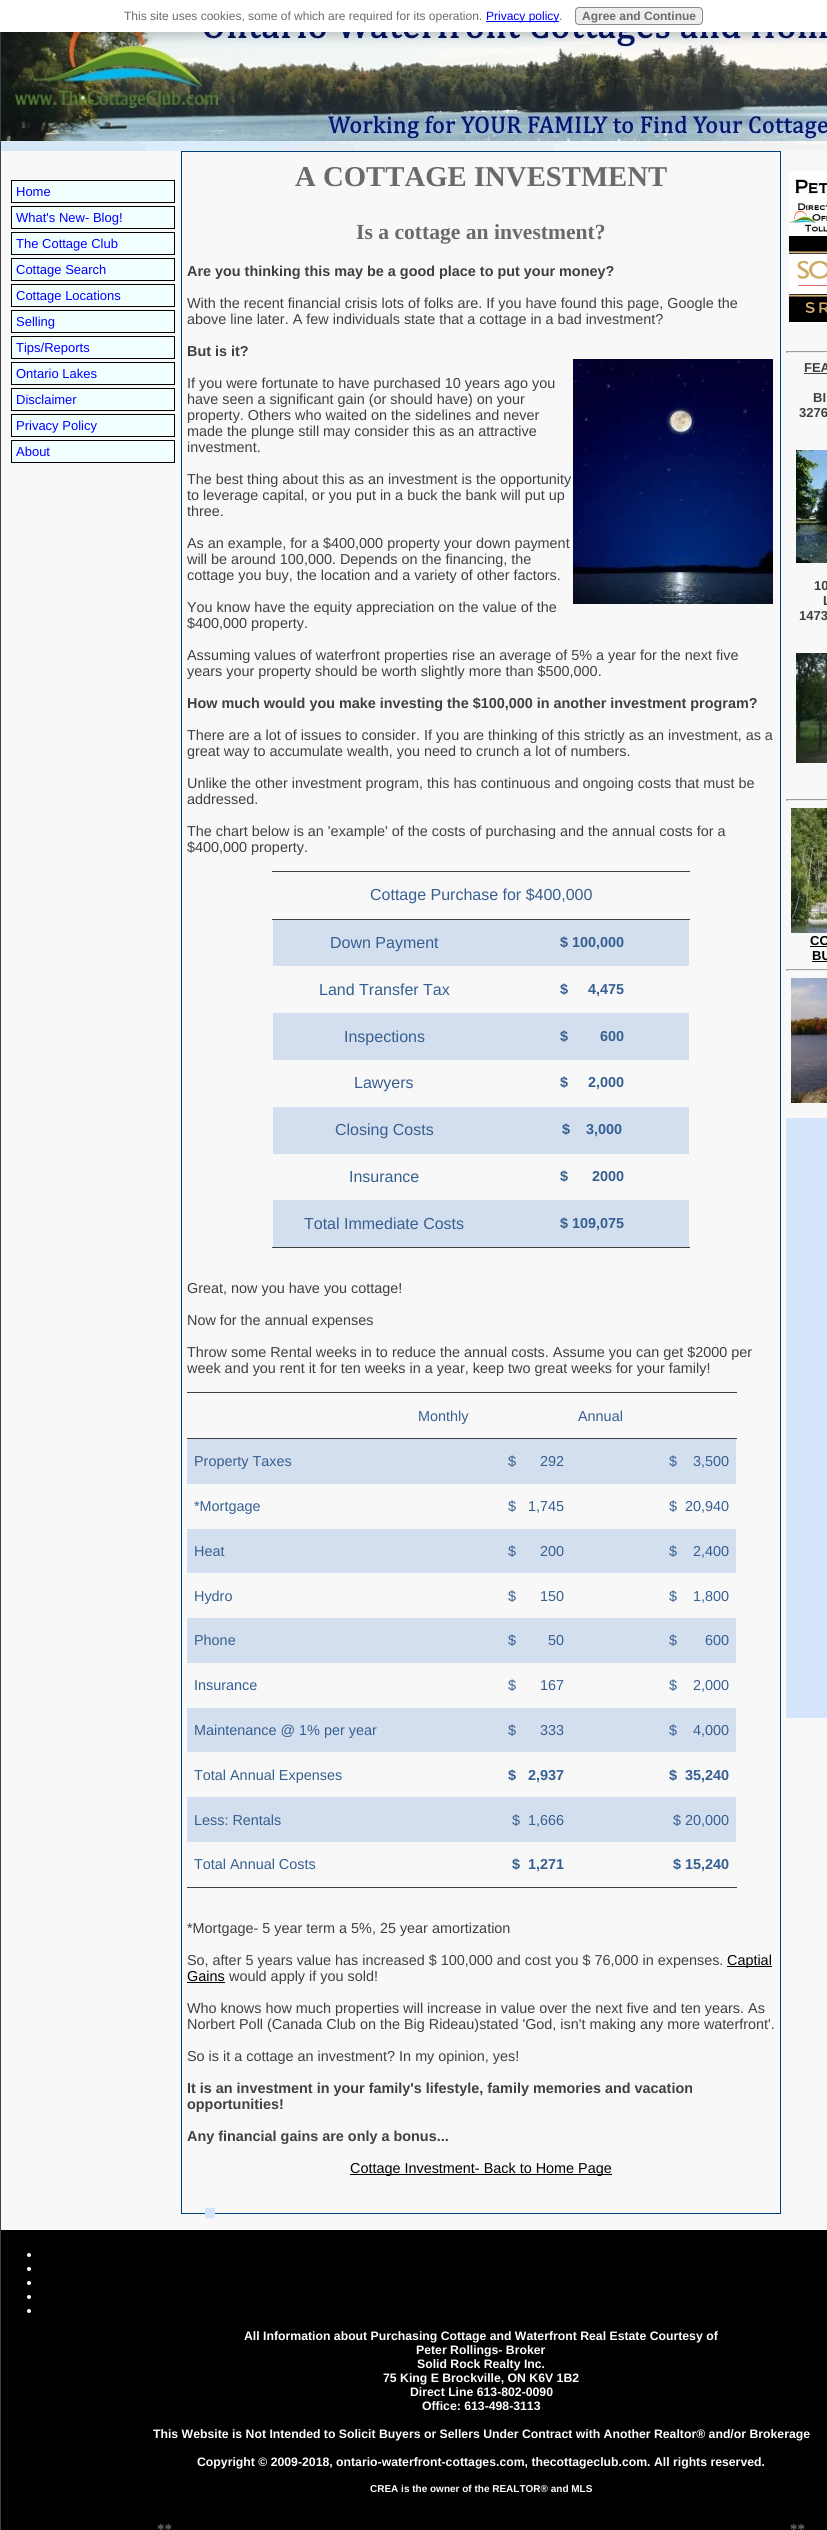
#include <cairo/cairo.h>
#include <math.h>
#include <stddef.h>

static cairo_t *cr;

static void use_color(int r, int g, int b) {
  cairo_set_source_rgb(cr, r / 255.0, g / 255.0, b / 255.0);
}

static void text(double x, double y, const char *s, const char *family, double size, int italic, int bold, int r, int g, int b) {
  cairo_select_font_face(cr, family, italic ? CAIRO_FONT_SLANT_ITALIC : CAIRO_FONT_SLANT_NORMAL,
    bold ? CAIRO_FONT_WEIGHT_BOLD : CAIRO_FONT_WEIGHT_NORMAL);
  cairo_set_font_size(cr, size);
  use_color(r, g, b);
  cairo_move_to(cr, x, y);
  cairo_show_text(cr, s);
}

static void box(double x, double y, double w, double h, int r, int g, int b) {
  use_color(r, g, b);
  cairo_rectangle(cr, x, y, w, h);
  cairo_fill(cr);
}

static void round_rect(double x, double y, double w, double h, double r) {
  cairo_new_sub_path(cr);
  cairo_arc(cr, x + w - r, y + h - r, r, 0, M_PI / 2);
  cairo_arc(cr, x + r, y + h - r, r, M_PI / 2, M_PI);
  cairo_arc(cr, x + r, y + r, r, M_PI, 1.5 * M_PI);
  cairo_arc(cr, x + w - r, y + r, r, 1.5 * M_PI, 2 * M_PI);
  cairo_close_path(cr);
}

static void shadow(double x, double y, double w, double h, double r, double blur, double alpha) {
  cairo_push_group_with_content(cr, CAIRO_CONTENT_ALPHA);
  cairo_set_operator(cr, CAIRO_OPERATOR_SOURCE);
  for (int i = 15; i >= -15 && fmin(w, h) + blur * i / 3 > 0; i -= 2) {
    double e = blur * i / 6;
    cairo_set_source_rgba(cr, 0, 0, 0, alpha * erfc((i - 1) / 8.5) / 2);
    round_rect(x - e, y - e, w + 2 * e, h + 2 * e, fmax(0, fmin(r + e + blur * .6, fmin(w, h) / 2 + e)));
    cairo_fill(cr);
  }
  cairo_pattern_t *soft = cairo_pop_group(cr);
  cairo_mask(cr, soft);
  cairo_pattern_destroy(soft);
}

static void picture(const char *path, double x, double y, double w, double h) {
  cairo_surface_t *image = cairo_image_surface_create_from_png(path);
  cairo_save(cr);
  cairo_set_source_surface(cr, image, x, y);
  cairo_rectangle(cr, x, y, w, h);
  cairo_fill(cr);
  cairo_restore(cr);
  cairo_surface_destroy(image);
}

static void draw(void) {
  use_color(255, 255, 255);
  cairo_paint(cr);
  picture("img_01.png", 1, 141, 826, 10);
  cairo_rectangle(cr, 0.5, 0.5, 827, 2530);
  use_color(64, 64, 64);
  cairo_set_line_width(cr, 1);
  cairo_stroke(cr);
  picture("img_02.png", 1, 32, 826, 109);
  use_color(0, 0, 0);
  shadow(-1, 3, 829, 34, 0, 5, 0.2);
  box(0, 0, 827, 32, 255, 255, 255);
  box(486, 21, 73, 1, 0, 0, 255);
  use_color(238, 238, 238);
  round_rect(575.5, 7.5, 127, 17, 3.5);
  cairo_fill_preserve(cr);
  use_color(136, 136, 136);
  cairo_stroke(cr);
  box(1, 151, 826, 2079, 248, 248, 248);
  use_color(242, 255, 255);
  cairo_rectangle(cr, 11.5, 180.5, 163, 22);
  cairo_fill_preserve(cr);
  use_color(0, 0, 0);
  cairo_stroke(cr);
  use_color(242, 255, 255);
  cairo_rectangle(cr, 11.5, 206.5, 163, 22);
  cairo_fill_preserve(cr);
  use_color(0, 0, 0);
  cairo_stroke(cr);
  use_color(242, 255, 255);
  cairo_rectangle(cr, 11.5, 232.5, 163, 22);
  cairo_fill_preserve(cr);
  use_color(0, 0, 0);
  cairo_stroke(cr);
  use_color(242, 255, 255);
  cairo_rectangle(cr, 11.5, 258.5, 163, 22);
  cairo_fill_preserve(cr);
  use_color(0, 0, 0);
  cairo_stroke(cr);
  use_color(242, 255, 255);
  cairo_rectangle(cr, 11.5, 284.5, 163, 22);
  cairo_fill_preserve(cr);
  use_color(0, 0, 0);
  cairo_stroke(cr);
  use_color(242, 255, 255);
  cairo_rectangle(cr, 11.5, 310.5, 163, 22);
  cairo_fill_preserve(cr);
  use_color(0, 0, 0);
  cairo_stroke(cr);
  use_color(242, 255, 255);
  cairo_rectangle(cr, 11.5, 336.5, 163, 22);
  cairo_fill_preserve(cr);
  use_color(0, 0, 0);
  cairo_stroke(cr);
  use_color(242, 255, 255);
  cairo_rectangle(cr, 11.5, 362.5, 163, 22);
  cairo_fill_preserve(cr);
  use_color(0, 0, 0);
  cairo_stroke(cr);
  use_color(242, 255, 255);
  cairo_rectangle(cr, 11.5, 388.5, 163, 22);
  cairo_fill_preserve(cr);
  use_color(0, 0, 0);
  cairo_stroke(cr);
  use_color(242, 255, 255);
  cairo_rectangle(cr, 11.5, 414.5, 163, 22);
  cairo_fill_preserve(cr);
  use_color(0, 0, 0);
  cairo_stroke(cr);
  use_color(242, 255, 255);
  cairo_rectangle(cr, 11.5, 440.5, 163, 22);
  cairo_fill_preserve(cr);
  use_color(0, 0, 0);
  cairo_stroke(cr);
  cairo_rectangle(cr, 181.5, 151.5, 599, 2062);
  use_color(0, 64, 128);
  cairo_stroke(cr);
  picture("img_03.png", 573, 359, 200, 245);
  box(272, 871, 418, 1, 64, 64, 64);
  box(272, 919, 418, 1, 64, 64, 64);
  box(273, 920, 416, 46, 211, 223, 238);
  box(273, 1013, 416, 47, 211, 223, 238);
  box(273, 1107, 416, 47, 211, 223, 238);
  box(273, 1200, 416, 47, 211, 223, 238);
  box(272, 1247, 418, 1, 64, 64, 64);
  box(187, 1392, 550, 1, 64, 64, 64);
  box(187, 1438, 550, 1, 64, 64, 64);
  box(187, 1439, 549, 45, 211, 223, 238);
  box(187, 1529, 549, 44, 211, 223, 238);
  box(187, 1618, 549, 45, 211, 223, 238);
  box(187, 1708, 549, 44, 211, 223, 238);
  box(187, 1797, 549, 45, 211, 223, 238);
  box(187, 1887, 550, 1, 64, 64, 64);
  box(727, 1966, 45, 1, 0, 0, 0);
  box(187, 1982, 38, 1, 0, 0, 0);
  box(350, 2174, 262, 1, 0, 0, 0);
  box(205, 2208, 10, 10, 211, 228, 251);
  picture("img_04.png", 789, 171, 38, 153);
  box(786, 351, 41, 1, 159, 159, 159);
  box(786, 352, 41, 1, 238, 238, 238);
  box(786, 351, 1, 2, 159, 159, 159);
  box(804, 373, 23, 1, 64, 64, 64);
  picture("img_05.png", 796, 450, 31, 113);
  picture("img_06.png", 796, 653, 31, 110);
  box(786, 799, 41, 1, 159, 159, 159);
  box(786, 800, 41, 1, 238, 238, 238);
  box(786, 799, 1, 2, 159, 159, 159);
  picture("img_07.png", 791, 808, 36, 125);
  box(810, 946, 17, 1, 0, 0, 0);
  box(812, 961, 15, 1, 0, 0, 0);
  box(786, 969, 41, 1, 159, 159, 159);
  box(786, 970, 41, 1, 238, 238, 238);
  box(786, 969, 1, 2, 159, 159, 159);
  picture("img_08.png", 791, 978, 36, 125);
  box(786, 1118, 41, 600, 211, 228, 251);
  box(1, 2230, 826, 300, 0, 0, 0);
  use_color(255, 255, 255);
  cairo_arc(cr, 29, 2255, 2, 0, 2 * M_PI);
  cairo_fill(cr);
  cairo_arc(cr, 29, 2269, 2, 0, 2 * M_PI);
  cairo_fill(cr);
  cairo_arc(cr, 29, 2283, 2, 0, 2 * M_PI);
  cairo_fill(cr);
  cairo_arc(cr, 29, 2297, 2, 0, 2 * M_PI);
  cairo_fill(cr);
  cairo_arc(cr, 29, 2311, 2, 0, 2 * M_PI);
  cairo_fill(cr);
  text(124, 20, "This site uses cookies, some of which are required for its operation.", "Liberation Sans", 12, 0, 0, 106, 106, 106);
  text(486, 20, "Privacy policy", "Liberation Sans", 12, 0, 0, 0, 0, 255);
  text(559, 20, ".", "Liberation Sans", 12, 0, 0, 106, 106, 106);
  text(582, 20, "Agree and Continue", "Liberation Sans", 12, 0, 1, 106, 106, 106);
  text(16, 196, "Home", "Liberation Sans", 13, 0, 0, 0, 0, 255);
  text(16, 222, "What's New- Blog!", "Liberation Sans", 13, 0, 0, 0, 0, 255);
  text(16, 248, "The Cottage Club", "Liberation Sans", 13, 0, 0, 0, 0, 255);
  text(16, 274, "Cottage Search", "Liberation Sans", 13, 0, 0, 0, 0, 255);
  text(16, 300, "Cottage Locations", "Liberation Sans", 13, 0, 0, 0, 0, 255);
  text(16, 326, "Selling", "Liberation Sans", 13, 0, 0, 0, 0, 255);
  text(16, 352, "Tips/Reports", "Liberation Sans", 13, 0, 0, 0, 0, 255);
  text(16, 378, "Ontario Lakes", "Liberation Sans", 13, 0, 0, 0, 0, 255);
  text(16, 404, "Disclaimer", "Liberation Sans", 13, 0, 0, 0, 0, 255);
  text(16, 430, "Privacy Policy", "Liberation Sans", 13, 0, 0, 0, 0, 255);
  text(16, 456, "About", "Liberation Sans", 13, 0, 0, 0, 0, 255);
  text(295, 186, "A COTTAGE INVESTMENT", "Liberation Serif", 28.75, 0, 1, 106, 106, 106);
  text(356, 239, "Is a cottage an investment?", "Liberation Serif", 21.6, 0, 1, 106, 106, 106);
  text(187, 276, "Are you thinking this may be a good place to put your money?", "Liberation Sans", 14.4, 0, 1, 64, 64, 64);
  text(187, 308, "With the recent financial crisis lots of folks are. If you have found this page, Google the", "Liberation Sans", 14.4, 0, 0, 64, 64, 64);
  text(187, 324, "above line later. A few individuals state that a cottage in a bad investment?", "Liberation Sans", 14.4, 0, 0, 64, 64, 64);
  text(187, 356, "But is it?", "Liberation Sans", 14.4, 0, 1, 64, 64, 64);
  text(187, 388, "If you were fortunate to have purchased 10 years ago you", "Liberation Sans", 14.4, 0, 0, 64, 64, 64);
  text(187, 404, "have seen a significant gain (or should have) on your", "Liberation Sans", 14.4, 0, 0, 64, 64, 64);
  text(187, 420, "property. Others who waited on the sidelines and never", "Liberation Sans", 14.4, 0, 0, 64, 64, 64);
  text(187, 436, "made the plunge still may consider this as an attractive", "Liberation Sans", 14.4, 0, 0, 64, 64, 64);
  text(187, 452, "investment.", "Liberation Sans", 14.4, 0, 0, 64, 64, 64);
  text(187, 484, "The best thing about this as an investment is the opportunity", "Liberation Sans", 14.4, 0, 0, 64, 64, 64);
  text(187, 500, "to leverage capital, or you put in a buck the bank will put up", "Liberation Sans", 14.4, 0, 0, 64, 64, 64);
  text(187, 516, "three.", "Liberation Sans", 14.4, 0, 0, 64, 64, 64);
  text(187, 548, "As an example, for a $400,000 property your down payment", "Liberation Sans", 14.4, 0, 0, 64, 64, 64);
  text(187, 564, "will be around 100,000. Depends on the financing, the", "Liberation Sans", 14.4, 0, 0, 64, 64, 64);
  text(187, 580, "cottage you buy, the location and a variety of other factors.", "Liberation Sans", 14.4, 0, 0, 64, 64, 64);
  text(187, 612, "You know have the equity appreciation on the value of the", "Liberation Sans", 14.4, 0, 0, 64, 64, 64);
  text(187, 628, "$400,000 property.", "Liberation Sans", 14.4, 0, 0, 64, 64, 64);
  text(187, 660, "Assuming values of waterfront properties rise an average of 5% a year for the next five", "Liberation Sans", 14.4, 0, 0, 64, 64, 64);
  text(187, 676, "years your property should be worth slightly more than $500,000.", "Liberation Sans", 14.4, 0, 0, 64, 64, 64);
  text(187, 708, "How much would you make investing the $100,000 in another investment program?", "Liberation Sans", 14.4, 0, 1, 64, 64, 64);
  text(187, 740, "There are a lot of issues to consider. If you are thinking of this strictly as an investment, as a", "Liberation Sans", 14.4, 0, 0, 64, 64, 64);
  text(187, 756, "great way to accumulate wealth, you need to crunch a lot of numbers.", "Liberation Sans", 14.4, 0, 0, 64, 64, 64);
  text(187, 788, "Unlike the other investment program, this has continuous and ongoing costs that must be", "Liberation Sans", 14.4, 0, 0, 64, 64, 64);
  text(187, 804, "addressed.", "Liberation Sans", 14.4, 0, 0, 64, 64, 64);
  text(187, 836, "The chart below is an 'example' of the costs of purchasing and the annual costs for a", "Liberation Sans", 14.4, 0, 0, 64, 64, 64);
  text(187, 852, "$400,000 property.", "Liberation Sans", 14.4, 0, 0, 64, 64, 64);
  text(370, 900, "Cottage Purchase for $400,000", "Liberation Sans", 16, 0, 0, 54, 95, 145);
  text(330, 948, "Down Payment", "Liberation Sans", 16, 0, 0, 54, 95, 145);
  text(560, 947, "$ 100,000", "Liberation Sans", 14.4, 0, 1, 54, 95, 145);
  text(319, 995, "Land Transfer Tax", "Liberation Sans", 16, 0, 0, 54, 95, 145);
  text(560, 994, "$", "Liberation Sans", 14.4, 0, 1, 54, 95, 145);
  text(588, 994, "4,475", "Liberation Sans", 14.4, 0, 1, 54, 95, 145);
  text(344, 1042, "Inspections", "Liberation Sans", 16, 0, 0, 54, 95, 145);
  text(560, 1041, "$", "Liberation Sans", 14.4, 0, 1, 54, 95, 145);
  text(600, 1041, "600", "Liberation Sans", 14.4, 0, 1, 54, 95, 145);
  text(354, 1088, "Lawyers", "Liberation Sans", 16, 0, 0, 54, 95, 145);
  text(560, 1087, "$", "Liberation Sans", 14.4, 0, 1, 54, 95, 145);
  text(588, 1087, "2,000", "Liberation Sans", 14.4, 0, 1, 54, 95, 145);
  text(335, 1135, "Closing Costs", "Liberation Sans", 16, 0, 0, 54, 95, 145);
  text(562, 1134, "$", "Liberation Sans", 14.4, 0, 1, 54, 95, 145);
  text(586, 1134, "3,000", "Liberation Sans", 14.4, 0, 1, 54, 95, 145);
  text(349, 1182, "Insurance", "Liberation Sans", 16, 0, 0, 54, 95, 145);
  text(560, 1181, "$", "Liberation Sans", 14.4, 0, 1, 54, 95, 145);
  text(592, 1181, "2000", "Liberation Sans", 14.4, 0, 1, 54, 95, 145);
  text(304, 1229, "Total Immediate Costs", "Liberation Sans", 16, 0, 0, 54, 95, 145);
  text(560, 1228, "$ 109,075", "Liberation Sans", 14.4, 0, 1, 54, 95, 145);
  text(187, 1293, "Great, now you have you cottage!", "Liberation Sans", 14.4, 0, 0, 64, 64, 64);
  text(187, 1325, "Now for the annual expenses", "Liberation Sans", 14.4, 0, 0, 64, 64, 64);
  text(187, 1357, "Throw some Rental weeks in to reduce the annual costs. Assume you can get $2000 per", "Liberation Sans", 14.4, 0, 0, 64, 64, 64);
  text(187, 1373, "week and you rent it for ten weeks in a year, keep two great weeks for your family!", "Liberation Sans", 14.4, 0, 0, 64, 64, 64);
  text(418, 1421, "Monthly", "Liberation Sans", 14.4, 0, 0, 54, 95, 145);
  text(578, 1421, "Annual", "Liberation Sans", 14.4, 0, 0, 54, 95, 145);
  text(194, 1466, "Property Taxes", "Liberation Sans", 14.4, 0, 0, 54, 95, 145);
  text(508, 1466, "$", "Liberation Sans", 14.4, 0, 0, 54, 95, 145);
  text(540, 1466, "292", "Liberation Sans", 14.4, 0, 0, 54, 95, 145);
  text(669, 1466, "$", "Liberation Sans", 14.4, 0, 0, 54, 95, 145);
  text(693, 1466, "3,500", "Liberation Sans", 14.4, 0, 0, 54, 95, 145);
  text(194, 1511, "*Mortgage", "Liberation Sans", 14.4, 0, 0, 54, 95, 145);
  text(508, 1511, "$", "Liberation Sans", 14.4, 0, 0, 54, 95, 145);
  text(528, 1511, "1,745", "Liberation Sans", 14.4, 0, 0, 54, 95, 145);
  text(669, 1511, "$", "Liberation Sans", 14.4, 0, 0, 54, 95, 145);
  text(685, 1511, "20,940", "Liberation Sans", 14.4, 0, 0, 54, 95, 145);
  text(194, 1556, "Heat", "Liberation Sans", 14.4, 0, 0, 54, 95, 145);
  text(508, 1556, "$", "Liberation Sans", 14.4, 0, 0, 54, 95, 145);
  text(540, 1556, "200", "Liberation Sans", 14.4, 0, 0, 54, 95, 145);
  text(669, 1556, "$", "Liberation Sans", 14.4, 0, 0, 54, 95, 145);
  text(693, 1556, "2,400", "Liberation Sans", 14.4, 0, 0, 54, 95, 145);
  text(194, 1601, "Hydro", "Liberation Sans", 14.4, 0, 0, 54, 95, 145);
  text(508, 1601, "$", "Liberation Sans", 14.4, 0, 0, 54, 95, 145);
  text(540, 1601, "150", "Liberation Sans", 14.4, 0, 0, 54, 95, 145);
  text(669, 1601, "$", "Liberation Sans", 14.4, 0, 0, 54, 95, 145);
  text(693, 1601, "1,800", "Liberation Sans", 14.4, 0, 0, 54, 95, 145);
  text(194, 1645, "Phone", "Liberation Sans", 14.4, 0, 0, 54, 95, 145);
  text(508, 1645, "$", "Liberation Sans", 14.4, 0, 0, 54, 95, 145);
  text(548, 1645, "50", "Liberation Sans", 14.4, 0, 0, 54, 95, 145);
  text(669, 1645, "$", "Liberation Sans", 14.4, 0, 0, 54, 95, 145);
  text(705, 1645, "600", "Liberation Sans", 14.4, 0, 0, 54, 95, 145);
  text(194, 1690, "Insurance", "Liberation Sans", 14.4, 0, 0, 54, 95, 145);
  text(508, 1690, "$", "Liberation Sans", 14.4, 0, 0, 54, 95, 145);
  text(540, 1690, "167", "Liberation Sans", 14.4, 0, 0, 54, 95, 145);
  text(669, 1690, "$", "Liberation Sans", 14.4, 0, 0, 54, 95, 145);
  text(693, 1690, "2,000", "Liberation Sans", 14.4, 0, 0, 54, 95, 145);
  text(194, 1735, "Maintenance @ 1% per year", "Liberation Sans", 14.4, 0, 0, 54, 95, 145);
  text(508, 1735, "$", "Liberation Sans", 14.4, 0, 0, 54, 95, 145);
  text(540, 1735, "333", "Liberation Sans", 14.4, 0, 0, 54, 95, 145);
  text(669, 1735, "$", "Liberation Sans", 14.4, 0, 0, 54, 95, 145);
  text(693, 1735, "4,000", "Liberation Sans", 14.4, 0, 0, 54, 95, 145);
  text(194, 1780, "Total Annual Expenses", "Liberation Sans", 14.4, 0, 0, 54, 95, 145);
  text(508, 1780, "$", "Liberation Sans", 14.4, 0, 1, 54, 95, 145);
  text(528, 1780, "2,937", "Liberation Sans", 14.4, 0, 1, 54, 95, 145);
  text(669, 1780, "$", "Liberation Sans", 14.4, 0, 1, 54, 95, 145);
  text(685, 1780, "35,240", "Liberation Sans", 14.4, 0, 1, 54, 95, 145);
  text(194, 1825, "Less: Rentals", "Liberation Sans", 14.4, 0, 0, 54, 95, 145);
  text(512, 1825, "$", "Liberation Sans", 14.4, 0, 0, 54, 95, 145);
  text(528, 1825, "1,666", "Liberation Sans", 14.4, 0, 0, 54, 95, 145);
  text(673, 1825, "$ 20,000", "Liberation Sans", 14.4, 0, 0, 54, 95, 145);
  text(194, 1869, "Total Annual Costs", "Liberation Sans", 14.4, 0, 0, 54, 95, 145);
  text(512, 1869, "$", "Liberation Sans", 14.4, 0, 1, 54, 95, 145);
  text(528, 1869, "1,271", "Liberation Sans", 14.4, 0, 1, 54, 95, 145);
  text(673, 1869, "$ 15,240", "Liberation Sans", 14.4, 0, 1, 54, 95, 145);
  text(187, 1933, "*Mortgage- 5 year term a 5%, 25 year amortization", "Liberation Sans", 14.4, 0, 0, 64, 64, 64);
  text(187, 1965, "So, after 5 years value has increased $ 100,000 and cost you $ 76,000 in expenses.", "Liberation Sans", 14.4, 0, 0, 64, 64, 64);
  text(727, 1965, "Captial", "Liberation Sans", 14.4, 0, 0, 0, 0, 0);
  text(187, 1981, "Gains", "Liberation Sans", 14.4, 0, 0, 0, 0, 0);
  text(229, 1981, "would apply if you sold!", "Liberation Sans", 14.4, 0, 0, 64, 64, 64);
  text(187, 2013, "Who knows how much properties will increase in value over the next five and ten years. As", "Liberation Sans", 14.4, 0, 0, 64, 64, 64);
  text(187, 2029, "Norbert Poll (Canada Club on the Big Rideau)stated 'God, isn't making any more waterfront'.", "Liberation Sans", 14.4, 0, 0, 64, 64, 64);
  text(187, 2061, "So is it a cottage an investment? In my opinion, yes!", "Liberation Sans", 14.4, 0, 0, 64, 64, 64);
  text(187, 2093, "It is an investment in your family's lifestyle, family memories and vacation", "Liberation Sans", 14.4, 0, 1, 64, 64, 64);
  text(187, 2109, "opportunities!", "Liberation Sans", 14.4, 0, 1, 64, 64, 64);
  text(187, 2141, "Any financial gains are only a bonus...", "Liberation Sans", 14.4, 0, 1, 64, 64, 64);
  text(350, 2173, "Cottage Investment- Back to Home Page", "Liberation Sans", 14.4, 0, 0, 0, 0, 0);
  text(804, 372, "FEA", "Liberation Sans", 13, 0, 1, 64, 64, 64);
  text(813, 402, "BI", "Liberation Sans", 13, 0, 1, 64, 64, 64);
  text(799, 417, "3276", "Liberation Sans", 13, 0, 1, 64, 64, 64);
  text(814, 590, "10", "Liberation Sans", 13, 0, 1, 64, 64, 64);
  text(823, 605, "L", "Liberation Sans", 13, 0, 1, 64, 64, 64);
  text(799, 620, "1473", "Liberation Sans", 13, 0, 1, 64, 64, 64);
  text(810, 945, "CO", "Liberation Sans", 13, 0, 1, 0, 0, 0);
  text(812, 960, "BU", "Liberation Sans", 13, 0, 1, 0, 0, 0);
  text(244, 2340, "All Information about Purchasing Cottage and Waterfront Real Estate Courtesy of", "Liberation Sans", 12.25, 0, 1, 255, 255, 255);
  text(416, 2354, "Peter Rollings- Broker", "Liberation Sans", 12.25, 0, 1, 255, 255, 255);
  text(417, 2368, "Solid Rock Realty Inc.", "Liberation Sans", 12.25, 0, 1, 255, 255, 255);
  text(383, 2382, "75 King E Brockville, ON K6V 1B2", "Liberation Sans", 12.25, 0, 1, 255, 255, 255);
  text(410, 2396, "Direct Line 613-802-0090", "Liberation Sans", 12.25, 0, 1, 255, 255, 255);
  text(422, 2410, "Office: 613-498-3113", "Liberation Sans", 12.25, 0, 1, 255, 255, 255);
  text(153, 2438, "This Website is Not Intended to Solicit Buyers or Sellers Under Contract with Another Realtor® and/or Brokerage", "Liberation Sans", 12.25, 0, 1, 255, 255, 255);
  text(197, 2466, "Copyright © 2009-2018, ontario-waterfront-cottages.com, thecottageclub.com. All rights reserved.", "Liberation Sans", 12.25, 0, 1, 255, 255, 255);
  text(370, 2492, "CREA is the owner of the REALTOR® and MLS", "Liberation Sans", 10, 0, 1, 255, 255, 255);
  text(157, 2534, "**", "Liberation Serif", 15, 0, 1, 106, 106, 106);
  text(790, 2534, "**", "Liberation Serif", 15, 0, 1, 106, 106, 106);
}

int main(void) {
  cairo_surface_t *surface = cairo_image_surface_create(CAIRO_FORMAT_RGB24, 827, 2530);
  cr = cairo_create(surface);
  cairo_font_options_t *options = cairo_font_options_create();
  cairo_font_options_set_hint_metrics(options, CAIRO_HINT_METRICS_OFF);
  cairo_font_options_set_hint_style(options, CAIRO_HINT_STYLE_NONE);
  cairo_set_font_options(cr, options);
  cairo_set_miter_limit(cr, 4);
  draw();
  cairo_surface_write_to_png(surface, "out.png");
  cairo_font_options_destroy(options);
  cairo_destroy(cr);
  cairo_surface_destroy(surface);
  return 0;
}
